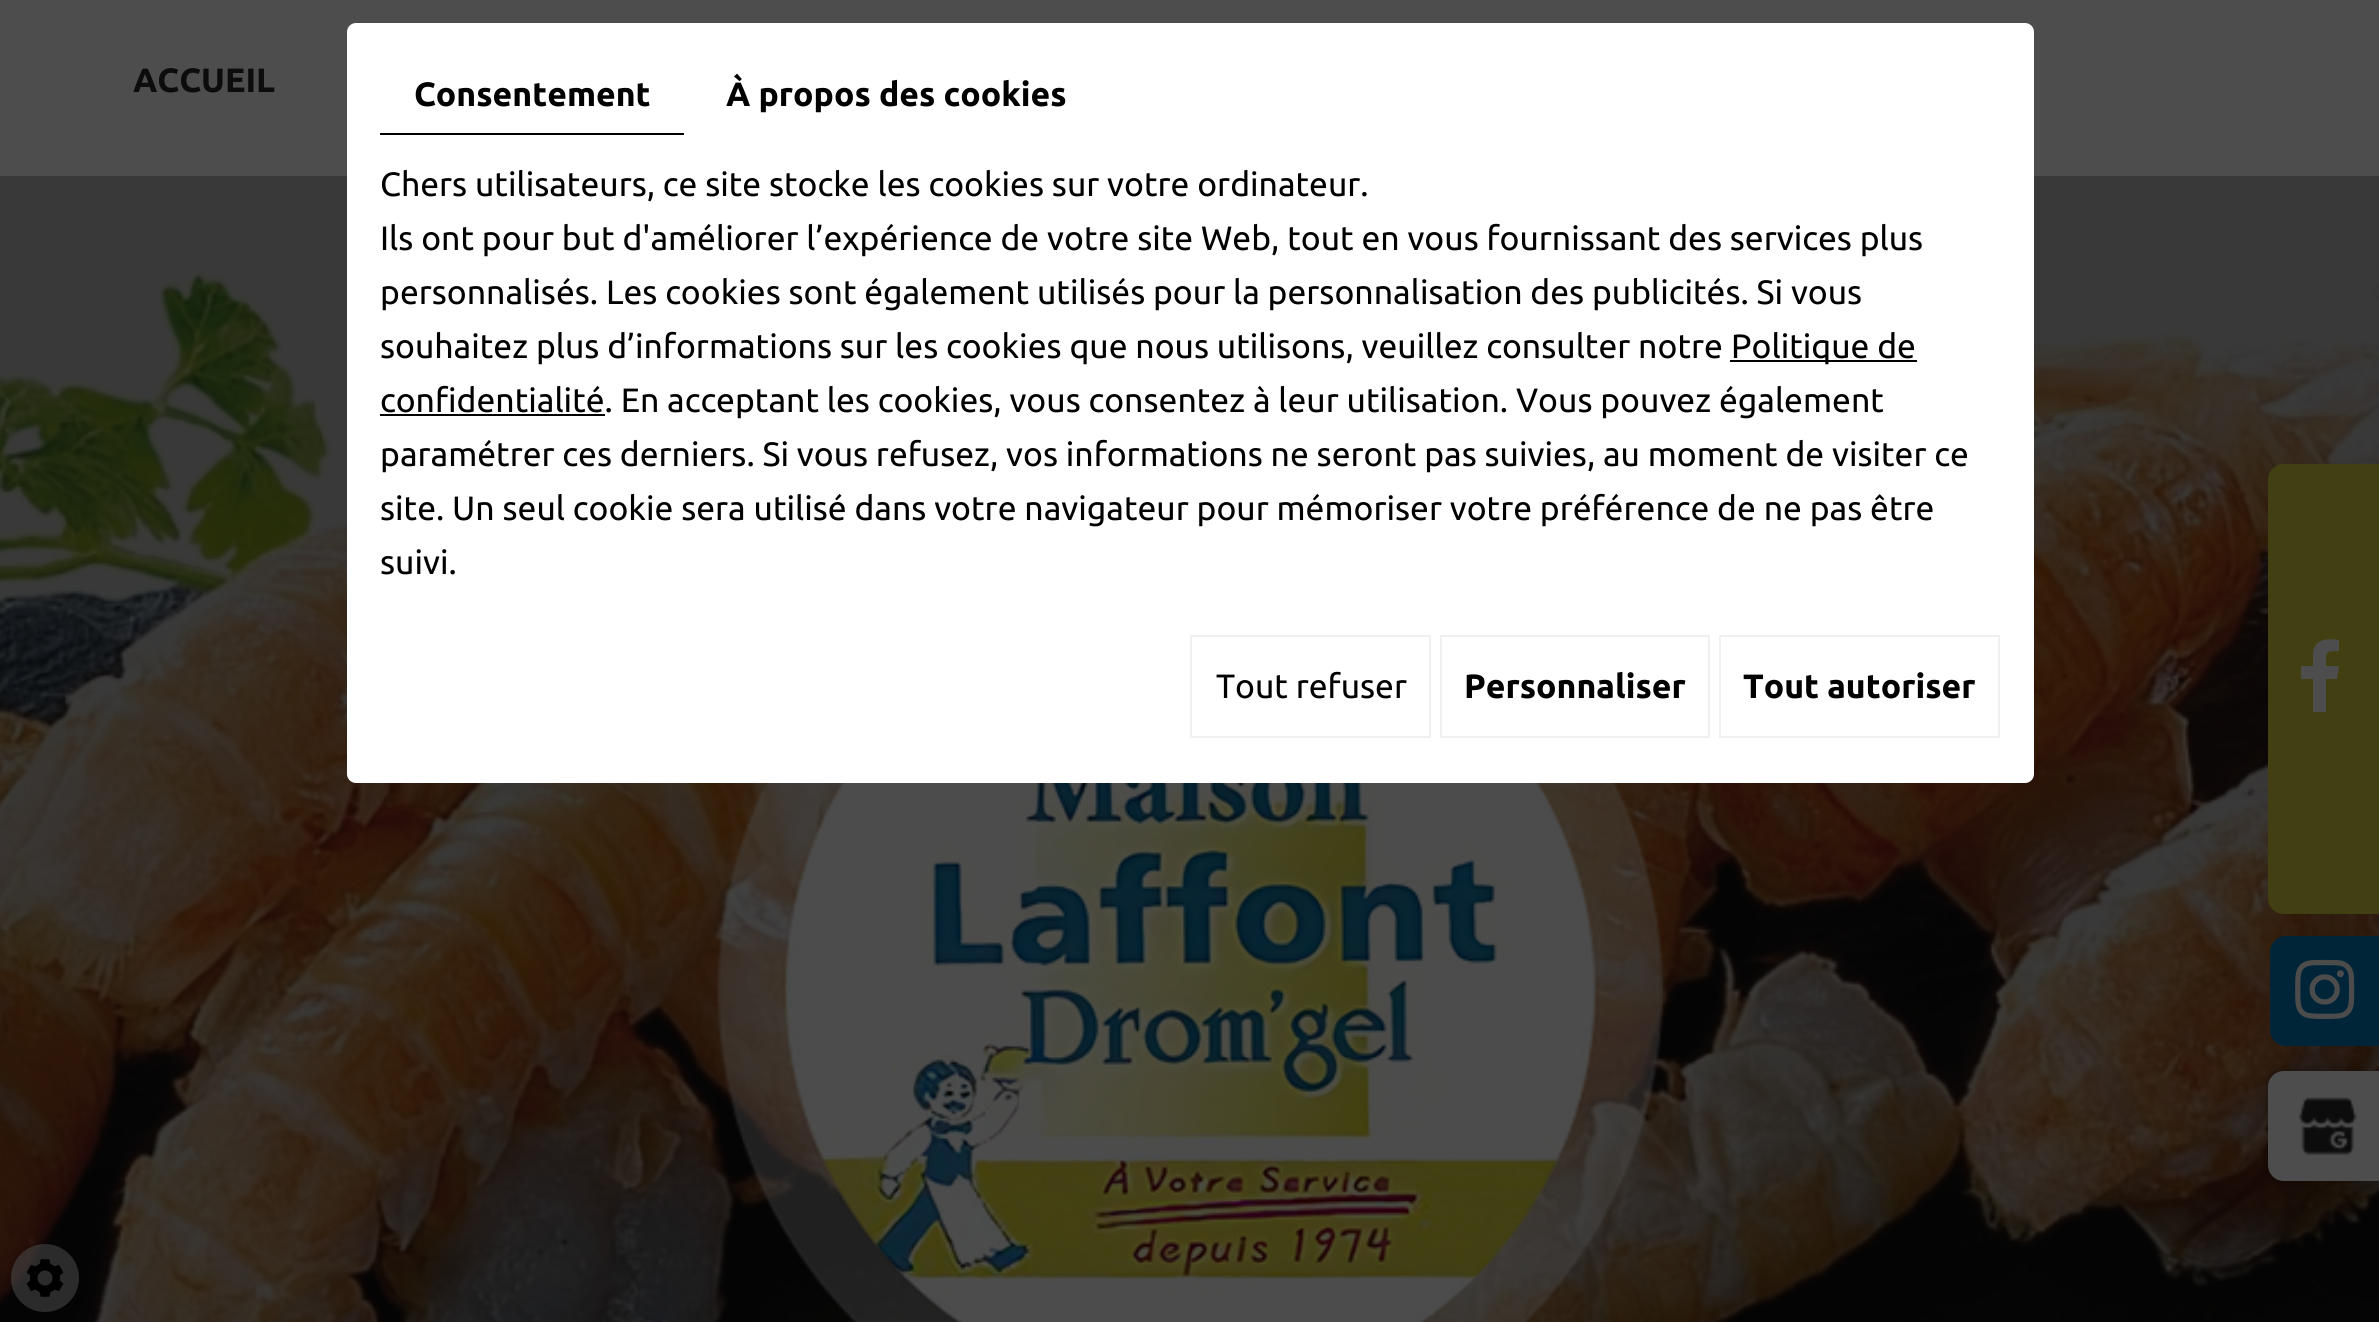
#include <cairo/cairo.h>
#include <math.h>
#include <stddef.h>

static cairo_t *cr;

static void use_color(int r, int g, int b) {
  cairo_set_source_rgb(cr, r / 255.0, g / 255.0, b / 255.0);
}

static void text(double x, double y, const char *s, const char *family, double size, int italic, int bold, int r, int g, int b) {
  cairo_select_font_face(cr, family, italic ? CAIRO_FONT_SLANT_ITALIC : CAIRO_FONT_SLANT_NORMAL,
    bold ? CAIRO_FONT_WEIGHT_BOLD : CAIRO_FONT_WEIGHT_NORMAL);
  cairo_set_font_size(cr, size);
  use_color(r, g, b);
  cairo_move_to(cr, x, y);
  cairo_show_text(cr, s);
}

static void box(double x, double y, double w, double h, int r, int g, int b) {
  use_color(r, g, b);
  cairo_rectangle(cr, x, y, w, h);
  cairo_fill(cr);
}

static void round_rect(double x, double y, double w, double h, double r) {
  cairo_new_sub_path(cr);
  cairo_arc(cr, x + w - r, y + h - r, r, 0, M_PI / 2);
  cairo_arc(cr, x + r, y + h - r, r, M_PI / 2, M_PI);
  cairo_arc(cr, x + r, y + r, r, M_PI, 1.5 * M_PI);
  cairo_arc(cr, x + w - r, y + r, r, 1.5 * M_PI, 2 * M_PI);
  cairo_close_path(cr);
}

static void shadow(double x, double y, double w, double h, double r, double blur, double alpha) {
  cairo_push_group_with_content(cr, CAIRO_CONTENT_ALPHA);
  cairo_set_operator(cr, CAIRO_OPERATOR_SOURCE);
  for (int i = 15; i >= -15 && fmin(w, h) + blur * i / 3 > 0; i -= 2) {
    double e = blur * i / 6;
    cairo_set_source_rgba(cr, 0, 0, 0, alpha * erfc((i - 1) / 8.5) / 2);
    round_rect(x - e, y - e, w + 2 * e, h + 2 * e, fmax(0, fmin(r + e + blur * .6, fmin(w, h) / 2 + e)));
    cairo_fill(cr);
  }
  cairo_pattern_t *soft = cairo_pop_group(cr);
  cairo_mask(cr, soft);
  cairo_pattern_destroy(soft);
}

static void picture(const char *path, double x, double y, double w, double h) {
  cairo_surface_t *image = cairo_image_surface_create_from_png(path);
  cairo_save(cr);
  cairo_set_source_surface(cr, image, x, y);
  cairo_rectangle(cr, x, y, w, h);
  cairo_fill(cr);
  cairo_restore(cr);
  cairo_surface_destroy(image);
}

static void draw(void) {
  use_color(77, 77, 77);
  cairo_paint(cr);
  box(0, 176, 2379, 48, 57, 57, 57);
  picture("img_01.png", 0, 224, 2379, 1098);
  picture("img_02.png", 717, 783, 946, 539);
  use_color(66, 64, 19);
  cairo_new_path(cr);
  cairo_move_to(cr, 2284, 464);
  cairo_line_to(cr, 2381, 464);
  cairo_line_to(cr, 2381, 914);
  cairo_line_to(cr, 2284, 914);
  cairo_curve_to(cr, 2275, 914, 2268, 907, 2268, 898);
  cairo_line_to(cr, 2268, 480);
  cairo_curve_to(cr, 2268, 471, 2275, 464, 2284, 464);
  cairo_close_path(cr);
  cairo_fill(cr);
  use_color(77, 77, 77);
  cairo_new_path(cr);
  cairo_move_to(cr, 2339, 640);
  cairo_line_to(cr, 2339, 651);
  cairo_curve_to(cr, 2325, 651, 2326, 651, 2326, 666);
  cairo_line_to(cr, 2339, 666);
  cairo_line_to(cr, 2337, 679);
  cairo_line_to(cr, 2326, 679);
  cairo_line_to(cr, 2326, 712);
  cairo_line_to(cr, 2313, 712);
  cairo_line_to(cr, 2313, 679);
  cairo_line_to(cr, 2301, 679);
  cairo_line_to(cr, 2301, 666);
  cairo_line_to(cr, 2313, 666);
  cairo_line_to(cr, 2313, 652);
  cairo_curve_to(cr, 2315, 639, 2328, 638, 2339, 640);
  cairo_close_path(cr);
  cairo_fill(cr);
  use_color(0, 37, 56);
  cairo_new_path(cr);
  cairo_move_to(cr, 2286, 936);
  cairo_line_to(cr, 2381, 936);
  cairo_line_to(cr, 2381, 1046);
  cairo_line_to(cr, 2286, 1046);
  cairo_curve_to(cr, 2277, 1046, 2270, 1039, 2270, 1030);
  cairo_line_to(cr, 2270, 952);
  cairo_curve_to(cr, 2270, 943, 2277, 936, 2286, 936);
  cairo_close_path(cr);
  cairo_fill(cr);
  picture("img_03.png", 2295, 959, 60, 60);
  use_color(0, 0, 0);
  shadow(2268, 1071, 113, 110, 16, 5.5, 0.41);
  use_color(77, 77, 77);
  cairo_new_path(cr);
  cairo_move_to(cr, 2284, 1071);
  cairo_line_to(cr, 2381, 1071);
  cairo_line_to(cr, 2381, 1181);
  cairo_line_to(cr, 2284, 1181);
  cairo_curve_to(cr, 2275, 1181, 2268, 1174, 2268, 1165);
  cairo_line_to(cr, 2268, 1087);
  cairo_curve_to(cr, 2268, 1078, 2275, 1071, 2284, 1071);
  cairo_close_path(cr);
  cairo_fill(cr);
  picture("img_04.png", 2299, 1097, 58, 59);
  use_color(255, 255, 255);
  round_rect(347, 23, 1687, 760, 9);
  cairo_fill(cr);
  box(380, 133, 304, 2, 0, 0, 0);
  box(1730, 360, 187, 2, 0, 0, 0);
  box(380, 414, 225, 2, 0, 0, 0);
  cairo_rectangle(cr, 1191, 636, 239, 101);
  use_color(240, 240, 240);
  cairo_stroke(cr);
  cairo_rectangle(cr, 1441, 636, 268, 101);
  cairo_stroke(cr);
  cairo_rectangle(cr, 1720, 636, 279, 101);
  cairo_stroke(cr);
  cairo_set_source_rgba(cr, 0.302, 0.302, 0.302, 0.54);
  cairo_arc(cr, 45, 1278, 34, 0, 2 * M_PI);
  cairo_fill(cr);
  picture("img_05.png", 26, 1259, 38, 38);
  text(133, 92, "ACCUEIL", "Ubuntu", 33.75, 0, 1, 12, 12, 12);
  text(414, 106, "Consentement", "Ubuntu", 33.75, 0, 1, 0, 0, 0);
  text(726, 106, "À propos des cookies", "Ubuntu", 33.75, 0, 1, 0, 0, 0);
  text(380, 196, "Chers utilisateurs, ce site stocke les cookies sur votre ordinateur.", "Ubuntu", 33.75, 0, 0, 0, 0, 0);
  text(380, 250, "Ils ont pour but d'améliorer l’expérience de votre site Web, tout en vous fournissant des services plus", "Ubuntu", 33.75, 0, 0, 0, 0, 0);
  text(380, 304, "personnalisés. Les cookies sont également utilisés pour la personnalisation des publicités. Si vous", "Ubuntu", 33.75, 0, 0, 0, 0, 0);
  text(380, 358, "souhaitez plus d’informations sur les cookies que nous utilisons, veuillez consulter notre", "Ubuntu", 33.75, 0, 0, 0, 0, 0);
  text(1731, 358, "Politique de", "Ubuntu", 33.75, 0, 0, 0, 0, 0);
  text(380, 412, "confidentialité. En acceptant les cookies, vous consentez à leur utilisation. Vous pouvez également", "Ubuntu", 33.75, 0, 0, 0, 0, 0);
  text(380, 466, "paramétrer ces derniers. Si vous refusez, vos informations ne seront pas suivies, au moment de visiter ce", "Ubuntu", 33.75, 0, 0, 0, 0, 0);
  text(380, 520, "site. Un seul cookie sera utilisé dans votre navigateur pour mémoriser votre préférence de ne pas être", "Ubuntu", 33.75, 0, 0, 0, 0, 0);
  text(380, 574, "suivi.", "Ubuntu", 33.75, 0, 0, 0, 0, 0);
  text(1216, 698, "Tout refuser", "Ubuntu", 33.75, 0, 0, 0, 0, 0);
  text(1464, 698, "Personnaliser", "Ubuntu", 33.75, 0, 1, 0, 0, 0);
  text(1743, 698, "Tout autoriser", "Ubuntu", 33.75, 0, 1, 0, 0, 0);
}

int main(void) {
  cairo_surface_t *surface = cairo_image_surface_create(CAIRO_FORMAT_RGB24, 2379, 1322);
  cr = cairo_create(surface);
  cairo_font_options_t *options = cairo_font_options_create();
  cairo_font_options_set_hint_metrics(options, CAIRO_HINT_METRICS_OFF);
  cairo_font_options_set_hint_style(options, CAIRO_HINT_STYLE_NONE);
  cairo_set_font_options(cr, options);
  cairo_set_miter_limit(cr, 4);
  draw();
  cairo_surface_write_to_png(surface, "out.png");
  cairo_font_options_destroy(options);
  cairo_destroy(cr);
  cairo_surface_destroy(surface);
  return 0;
}
